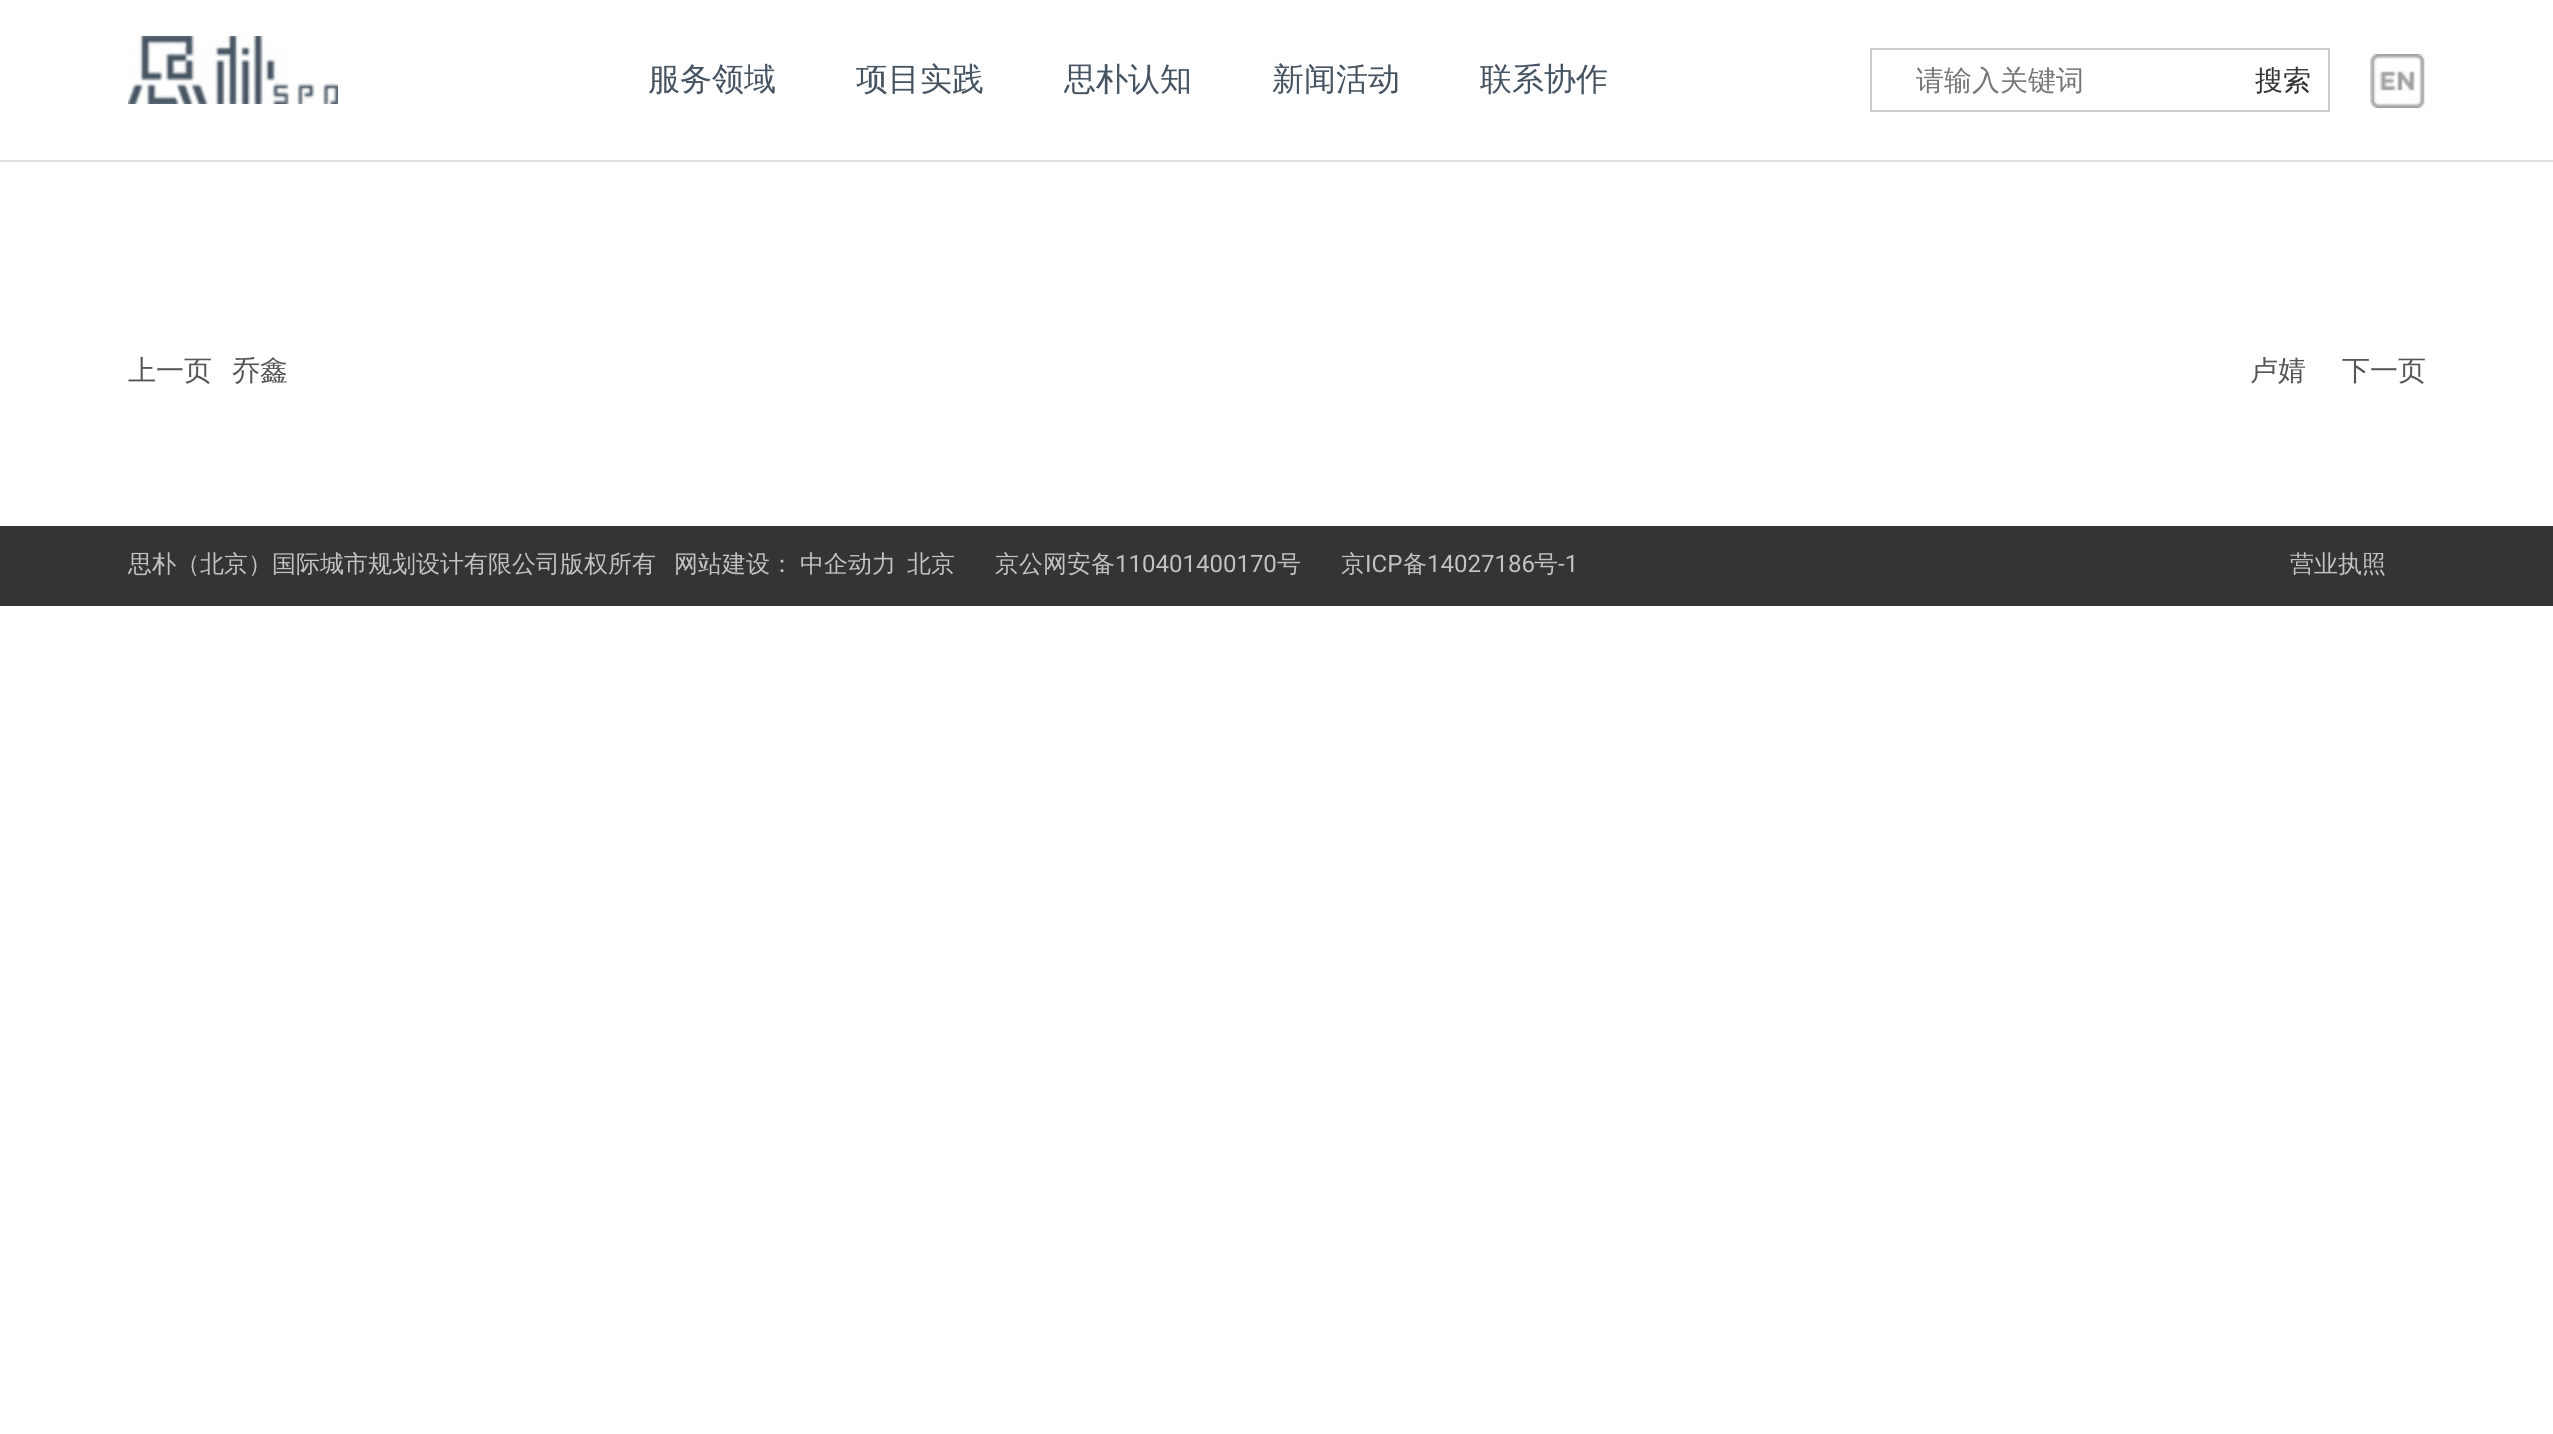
#include <cairo/cairo.h>
#include <math.h>
#include <stddef.h>

static cairo_t *cr;

static void use_color(int r, int g, int b) {
  cairo_set_source_rgb(cr, r / 255.0, g / 255.0, b / 255.0);
}

static void text(double x, double y, const char *s, const char *family, double size, int italic, int bold, int r, int g, int b) {
  cairo_select_font_face(cr, family, italic ? CAIRO_FONT_SLANT_ITALIC : CAIRO_FONT_SLANT_NORMAL,
    bold ? CAIRO_FONT_WEIGHT_BOLD : CAIRO_FONT_WEIGHT_NORMAL);
  cairo_set_font_size(cr, size);
  use_color(r, g, b);
  cairo_move_to(cr, x, y);
  cairo_show_text(cr, s);
}

static void box(double x, double y, double w, double h, int r, int g, int b) {
  use_color(r, g, b);
  cairo_rectangle(cr, x, y, w, h);
  cairo_fill(cr);
}

static void picture(const char *path, double x, double y, double w, double h) {
  cairo_surface_t *image = cairo_image_surface_create_from_png(path);
  cairo_save(cr);
  cairo_set_source_surface(cr, image, x, y);
  cairo_rectangle(cr, x, y, w, h);
  cairo_fill(cr);
  cairo_restore(cr);
  cairo_surface_destroy(image);
}

static void draw(void) {
  use_color(255, 255, 255);
  cairo_paint(cr);
  box(0, 160, 2553, 2, 222, 222, 222);
  picture("img_01.png", 128, 36, 210, 68);
  cairo_rectangle(cr, 1871, 49, 458, 62);
  use_color(204, 204, 204);
  cairo_stroke(cr);
  picture("img_02.png", 2370, 54, 55, 54);
  box(0, 526, 2553, 80, 52, 52, 52);
  text(648, 90, "服务领域", "WenQuanYi Zen Hei Medium", 32, 0, 0, 70, 84, 97);
  text(856, 90, "项目实践", "WenQuanYi Zen Hei Medium", 32, 0, 0, 70, 84, 97);
  text(1064, 90, "思朴认知", "WenQuanYi Zen Hei Medium", 32, 0, 0, 70, 84, 97);
  text(1272, 90, "新闻活动", "WenQuanYi Zen Hei Medium", 32, 0, 0, 70, 84, 97);
  text(1480, 90, "联系协作", "WenQuanYi Zen Hei Medium", 32, 0, 0, 70, 84, 97);
  text(1916, 90, "请输入关键词", "WenQuanYi Zen Hei Medium", 28, 0, 0, 117, 117, 117);
  text(2255, 90, "搜索", "WenQuanYi Zen Hei Medium", 28, 0, 0, 51, 51, 51);
  text(128, 380, "上一页", "WenQuanYi Zen Hei Medium", 28, 0, 0, 85, 85, 85);
  text(232, 380, "乔鑫", "WenQuanYi Zen Hei Medium", 28, 0, 0, 85, 85, 85);
  text(2250, 380, "卢婧", "WenQuanYi Zen Hei Medium", 28, 0, 0, 85, 85, 85);
  text(2342, 380, "下一页", "WenQuanYi Zen Hei Medium", 28, 0, 0, 85, 85, 85);
  text(128, 572, "思朴（北京）国际城市规划设计有限公司版权所有", "WenQuanYi Zen Hei Medium", 24, 0, 0, 194, 194, 194);
  text(674, 572, "网站建设：", "WenQuanYi Zen Hei Medium", 24, 0, 0, 194, 194, 194);
  text(800, 572, "中企动力", "WenQuanYi Zen Hei Medium", 24, 0, 0, 194, 194, 194);
  text(907, 572, "北京", "WenQuanYi Zen Hei Medium", 24, 0, 0, 194, 194, 194);
  text(995, 572, "京公网安备", "WenQuanYi Zen Hei Medium", 24, 0, 0, 194, 194, 194);
  text(1115, 572, "110401400170", "Roboto", 24, 0, 0, 194, 194, 194);
  text(1277, 572, "号", "WenQuanYi Zen Hei Medium", 24, 0, 0, 194, 194, 194);
  text(1341, 572, "京", "WenQuanYi Zen Hei Medium", 24, 0, 0, 194, 194, 194);
  text(1365, 572, "ICP", "Roboto", 24, 0, 0, 194, 194, 194);
  text(1403, 572, "备", "WenQuanYi Zen Hei Medium", 24, 0, 0, 194, 194, 194);
  text(1427, 572, "14027186", "Roboto", 24, 0, 0, 194, 194, 194);
  text(1534, 572, "号", "WenQuanYi Zen Hei Medium", 24, 0, 0, 194, 194, 194);
  text(1558, 572, "-1", "Roboto", 24, 0, 0, 194, 194, 194);
  text(2290, 572, "营业执照", "WenQuanYi Zen Hei Medium", 24, 0, 0, 194, 194, 194);
}

int main(void) {
  cairo_surface_t *surface = cairo_image_surface_create(CAIRO_FORMAT_RGB24, 2553, 1434);
  cr = cairo_create(surface);
  cairo_font_options_t *options = cairo_font_options_create();
  cairo_font_options_set_hint_metrics(options, CAIRO_HINT_METRICS_OFF);
  cairo_font_options_set_hint_style(options, CAIRO_HINT_STYLE_NONE);
  cairo_set_font_options(cr, options);
  cairo_set_miter_limit(cr, 4);
  draw();
  cairo_surface_write_to_png(surface, "out.png");
  cairo_font_options_destroy(options);
  cairo_destroy(cr);
  cairo_surface_destroy(surface);
  return 0;
}
